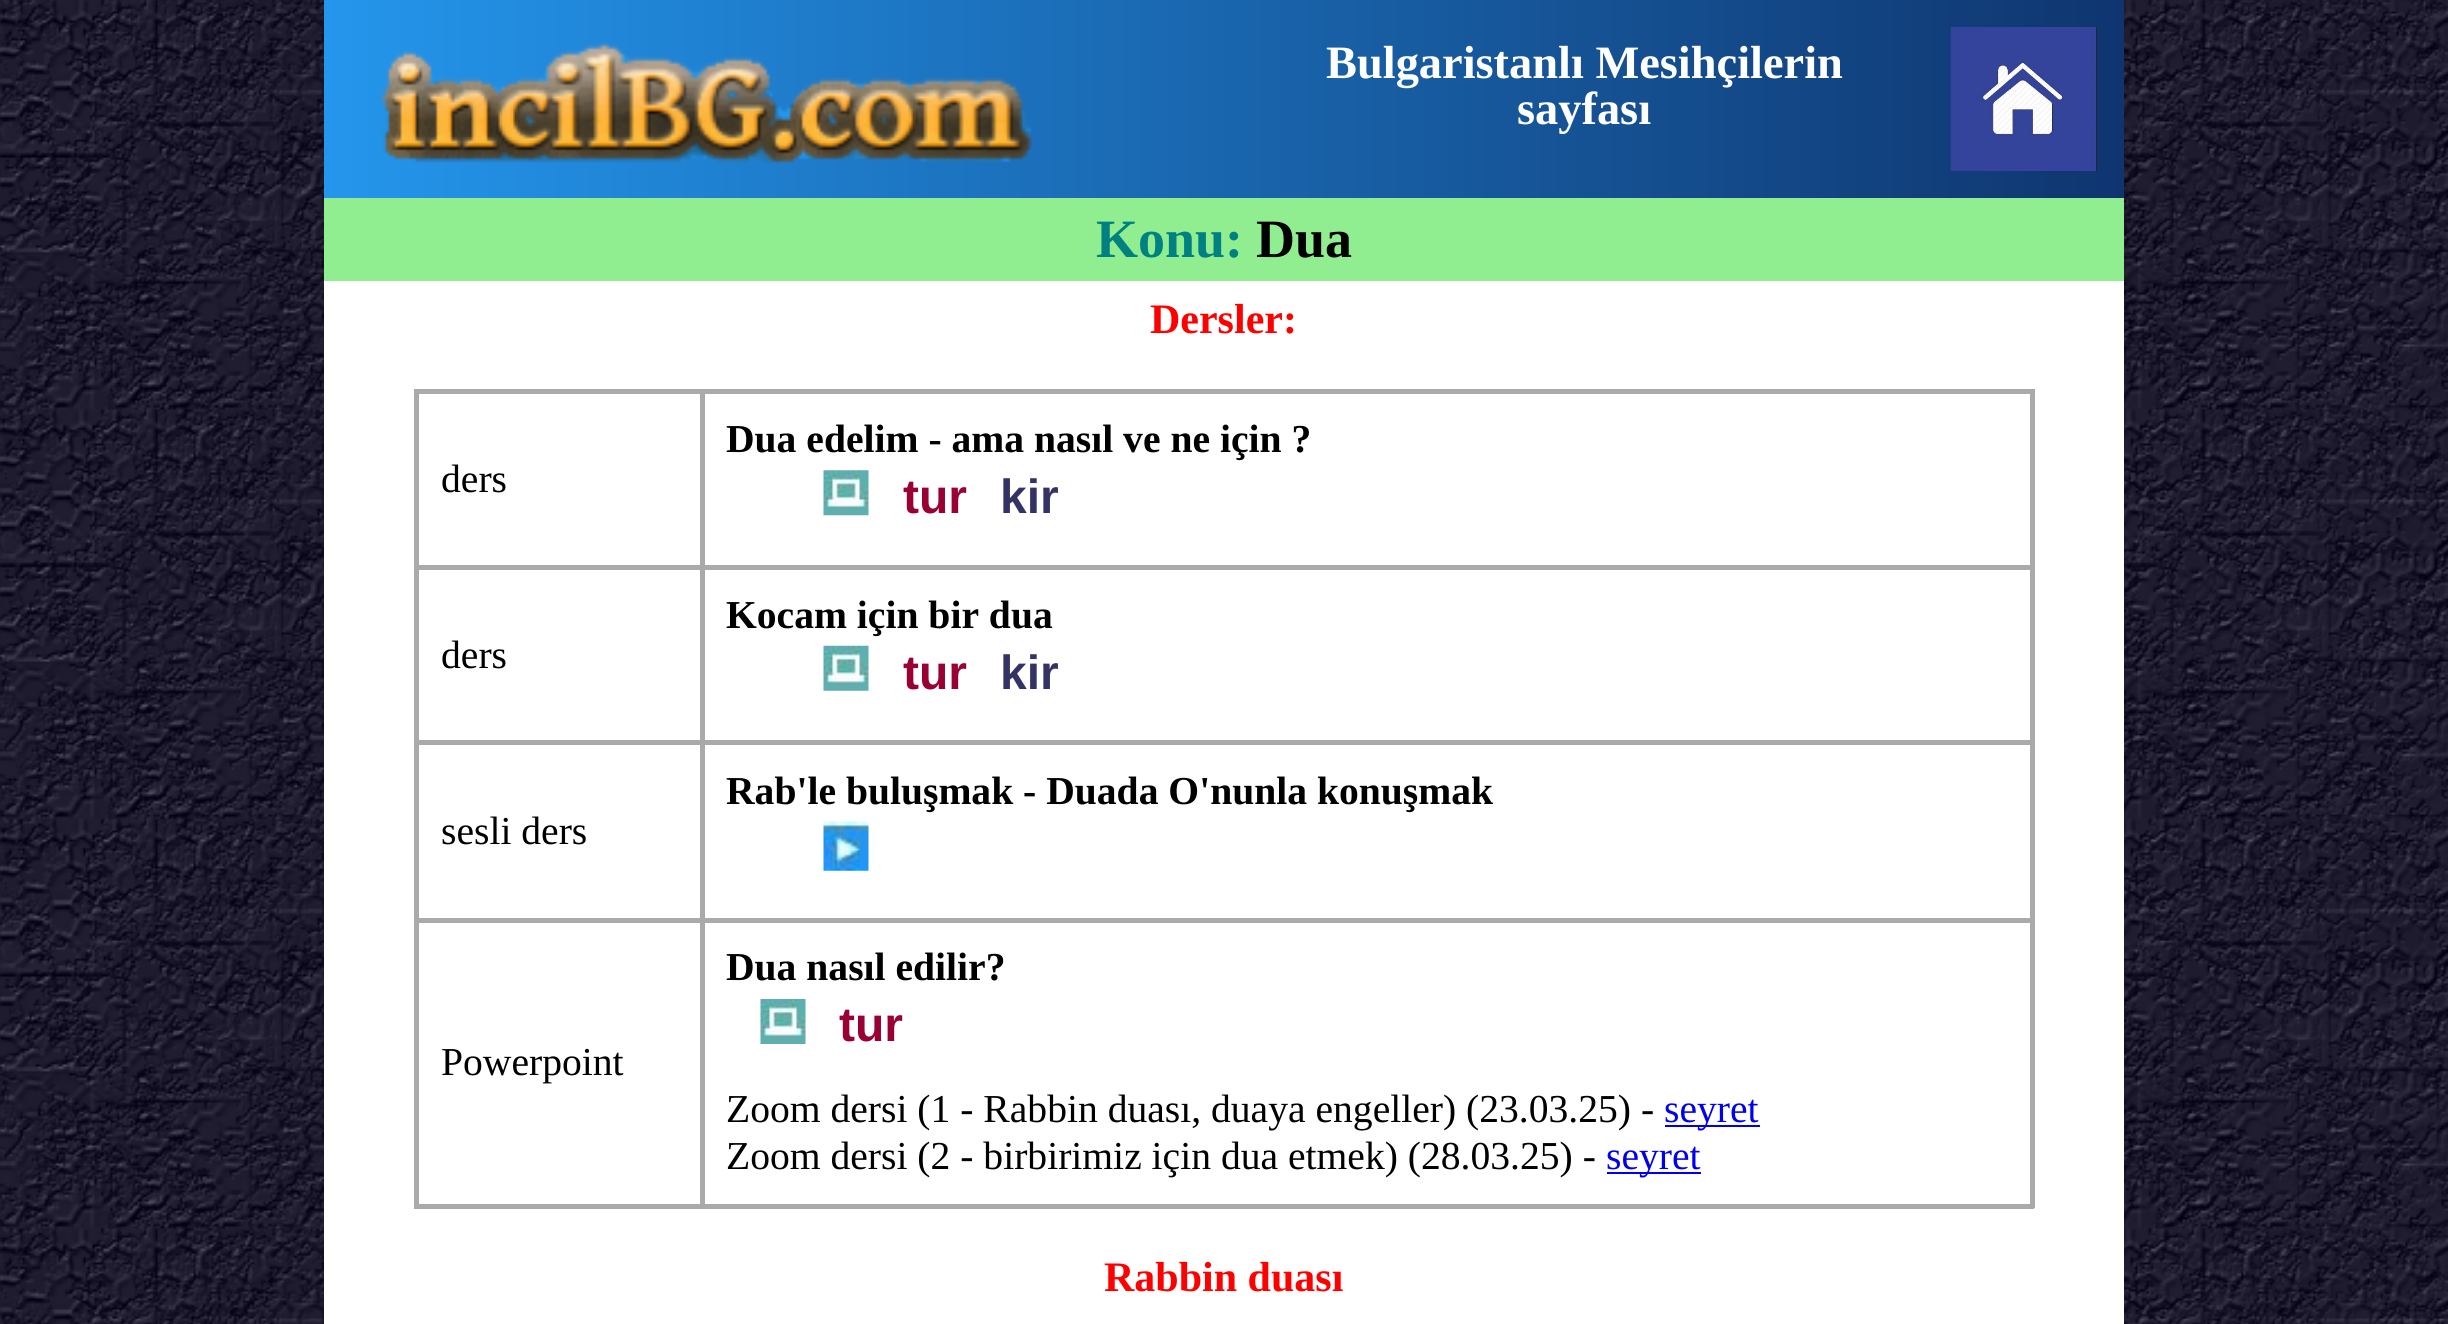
#include <cairo/cairo.h>
#include <math.h>
#include <stddef.h>

static cairo_t *cr;

static void use_color(int r, int g, int b) {
  cairo_set_source_rgb(cr, r / 255.0, g / 255.0, b / 255.0);
}

static void text(double x, double y, const char *s, const char *family, double size, int italic, int bold, int r, int g, int b) {
  cairo_select_font_face(cr, family, italic ? CAIRO_FONT_SLANT_ITALIC : CAIRO_FONT_SLANT_NORMAL,
    bold ? CAIRO_FONT_WEIGHT_BOLD : CAIRO_FONT_WEIGHT_NORMAL);
  cairo_set_font_size(cr, size);
  use_color(r, g, b);
  cairo_move_to(cr, x, y);
  cairo_show_text(cr, s);
}

static void box(double x, double y, double w, double h, int r, int g, int b) {
  use_color(r, g, b);
  cairo_rectangle(cr, x, y, w, h);
  cairo_fill(cr);
}

static void picture(const char *path, double x, double y, double w, double h) {
  cairo_surface_t *image = cairo_image_surface_create_from_png(path);
  cairo_save(cr);
  cairo_set_source_surface(cr, image, x, y);
  cairo_rectangle(cr, x, y, w, h);
  cairo_fill(cr);
  cairo_restore(cr);
  cairo_surface_destroy(image);
}

static void draw(void) {
  cairo_pattern_t *gradient;
  use_color(255, 255, 255);
  cairo_paint(cr);
  picture("img_01.png", 0, 0, 2448, 1324);
  box(324, 281, 1800, 1043, 255, 255, 255);
  gradient = cairo_pattern_create_linear(324, 99, 2124, 99);
  cairo_pattern_add_color_stop_rgba(gradient, 0, 0.141, 0.588, 0.925, 1);
  cairo_pattern_add_color_stop_rgba(gradient, 1, 0.059, 0.208, 0.435, 1);
  cairo_set_source(cr, gradient);
  cairo_pattern_destroy(gradient);
  cairo_rectangle(cr, 324, 0, 1800, 198);
  cairo_fill(cr);
  picture("img_02.png", 379, 42, 653, 121);
  picture("img_03.png", 1950, 27, 147, 144);
  box(324, 198, 1800, 83, 144, 238, 144);
  box(700, 389, 1334, 5, 170, 170, 170);
  box(700, 565, 1334, 5, 170, 170, 170);
  box(700, 740, 1334, 5, 170, 170, 170);
  box(700, 918, 1334, 5, 170, 170, 170);
  box(2030, 918, 5, 290, 170, 170, 170);
  box(700, 1204, 1334, 5, 170, 170, 170);
  box(700, 918, 5, 290, 170, 170, 170);
  box(414, 918, 290, 5, 170, 170, 170);
  box(700, 740, 5, 183, 170, 170, 170);
  box(414, 740, 290, 5, 170, 170, 170);
  box(700, 565, 5, 180, 170, 170, 170);
  box(414, 565, 290, 5, 170, 170, 170);
  box(700, 389, 5, 180, 170, 170, 170);
  box(414, 389, 290, 5, 170, 170, 170);
  box(414, 1204, 290, 5, 170, 170, 170);
  box(414, 918, 5, 290, 170, 170, 170);
  box(414, 740, 5, 183, 170, 170, 170);
  box(414, 565, 5, 180, 170, 170, 170);
  box(414, 389, 5, 180, 170, 170, 170);
  box(2030, 740, 5, 183, 170, 170, 170);
  box(2030, 565, 5, 180, 170, 170, 170);
  box(2030, 389, 5, 180, 170, 170, 170);
  picture("img_04.png", 823, 470, 46, 46);
  picture("img_05.png", 823, 645, 46, 46);
  picture("img_06.png", 823, 821, 46, 50);
  picture("img_07.png", 760, 999, 46, 45);
  box(1665, 1125, 95, 2, 0, 0, 238);
  box(1607, 1172, 94, 2, 0, 0, 238);
  text(1326, 78, "Bulgaristanlı Mesihçilerin", "Liberation Serif", 46.4, 0, 1, 255, 255, 255);
  text(1517, 124, "sayfası", "Liberation Serif", 46.4, 0, 1, 255, 255, 255);
  text(1096, 257, "Konu:", "Liberation Serif", 54, 0, 1, 0, 128, 128);
  text(1256, 257, "Dua", "Liberation Serif", 54, 0, 1, 0, 0, 0);
  text(1150, 333, "Dersler:", "Liberation Serif", 42, 0, 1, 255, 0, 0);
  text(441, 492, "ders", "Liberation Serif", 39.6, 0, 0, 0, 0, 0);
  text(726, 452, "Dua edelim - ama nasıl ve ne için ?", "Liberation Serif", 39.6, 0, 1, 0, 0, 0);
  text(903, 513, "tur", "Liberation Sans", 48, 0, 1, 153, 0, 51);
  text(1000, 513, "kir", "Liberation Sans", 48, 0, 1, 51, 51, 102);
  text(441, 668, "ders", "Liberation Serif", 39.6, 0, 0, 0, 0, 0);
  text(726, 628, "Kocam için bir dua", "Liberation Serif", 39.6, 0, 1, 0, 0, 0);
  text(903, 689, "tur", "Liberation Sans", 48, 0, 1, 153, 0, 51);
  text(1000, 689, "kir", "Liberation Sans", 48, 0, 1, 51, 51, 102);
  text(726, 804, "Rab'le buluşmak - Duada O'nunla konuşmak", "Liberation Serif", 39.6, 0, 1, 0, 0, 0);
  text(441, 844, "sesli ders", "Liberation Serif", 39.6, 0, 0, 0, 0, 0);
  text(441, 1075, "Powerpoint", "Liberation Serif", 39.6, 0, 0, 0, 0, 0);
  text(726, 980, "Dua nasıl edilir?", "Liberation Serif", 39.6, 0, 1, 0, 0, 0);
  text(839, 1041, "tur", "Liberation Sans", 48, 0, 1, 153, 0, 51);
  text(726, 1122, "Zoom dersi (1 - Rabbin duası, duaya engeller) (23.03.25) -", "Liberation Serif", 39.6, 0, 0, 0, 0, 0);
  text(1664, 1122, "seyret", "Liberation Serif", 39.6, 0, 0, 0, 0, 238);
  text(726, 1169, "Zoom dersi (2 - birbirimiz için dua etmek) (28.03.25) -", "Liberation Serif", 39.6, 0, 0, 0, 0, 0);
  text(1606, 1169, "seyret", "Liberation Serif", 39.6, 0, 0, 0, 0, 238);
  text(1104, 1291, "Rabbin duası", "Liberation Serif", 42, 0, 1, 255, 0, 0);
}

int main(void) {
  cairo_surface_t *surface = cairo_image_surface_create(CAIRO_FORMAT_RGB24, 2448, 1324);
  cr = cairo_create(surface);
  cairo_font_options_t *options = cairo_font_options_create();
  cairo_font_options_set_hint_metrics(options, CAIRO_HINT_METRICS_OFF);
  cairo_font_options_set_hint_style(options, CAIRO_HINT_STYLE_NONE);
  cairo_set_font_options(cr, options);
  cairo_set_miter_limit(cr, 4);
  draw();
  cairo_surface_write_to_png(surface, "out.png");
  cairo_font_options_destroy(options);
  cairo_destroy(cr);
  cairo_surface_destroy(surface);
  return 0;
}
